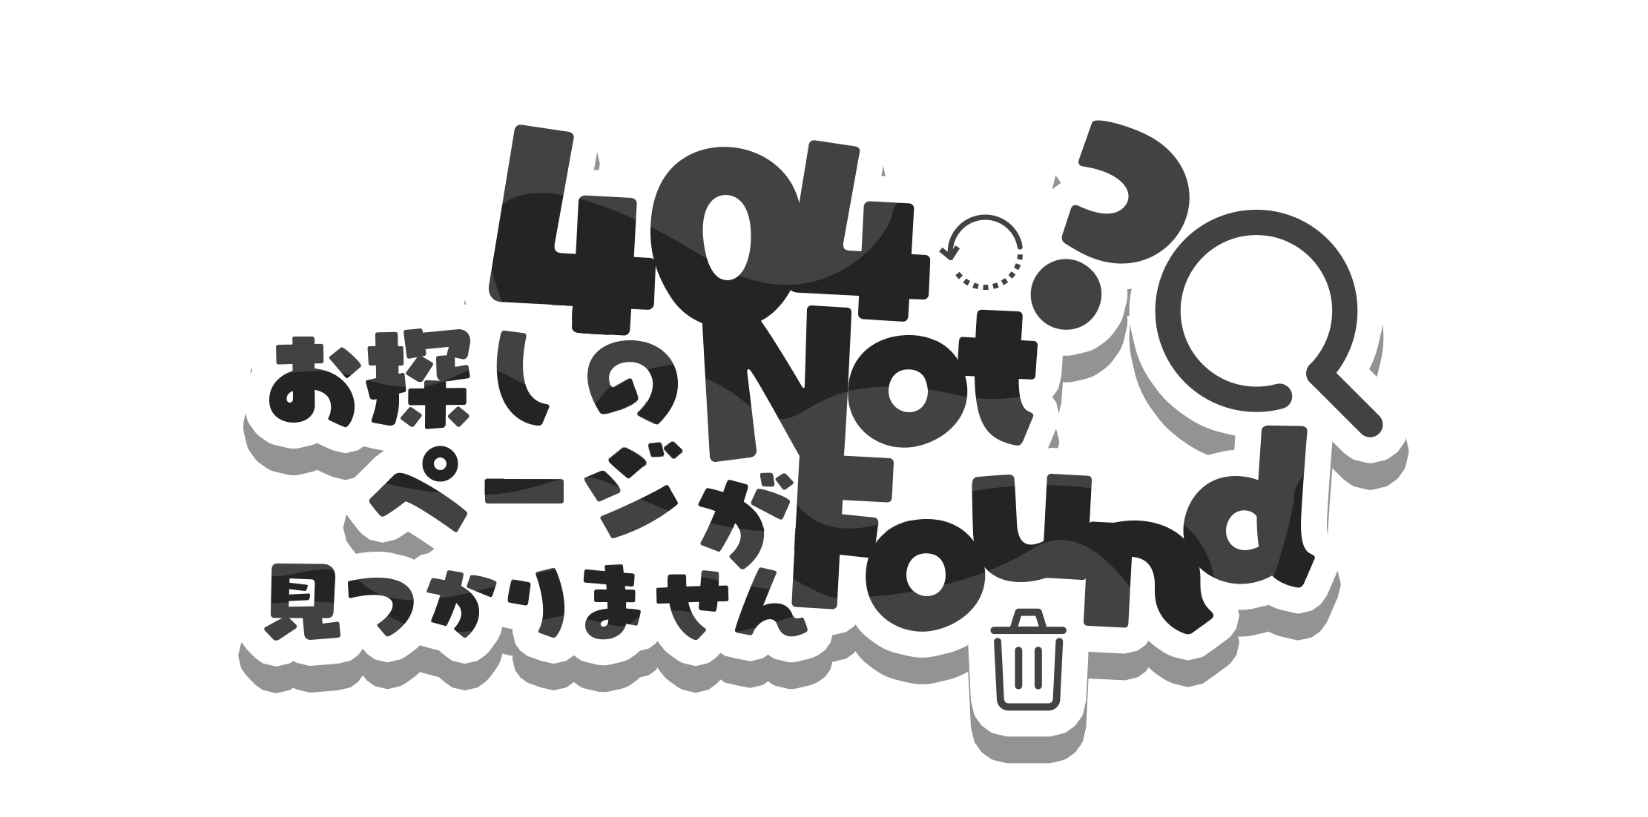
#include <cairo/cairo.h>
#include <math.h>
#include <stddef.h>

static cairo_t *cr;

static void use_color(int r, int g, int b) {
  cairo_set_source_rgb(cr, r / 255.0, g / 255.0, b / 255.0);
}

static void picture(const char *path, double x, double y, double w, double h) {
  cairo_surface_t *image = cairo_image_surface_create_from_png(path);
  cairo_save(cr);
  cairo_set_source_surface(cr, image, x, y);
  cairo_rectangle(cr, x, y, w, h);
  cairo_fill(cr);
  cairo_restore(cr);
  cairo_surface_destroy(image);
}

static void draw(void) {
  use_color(255, 255, 255);
  cairo_paint(cr);
  picture("img_01.png", 238, 120, 1171, 644);
}

int main(void) {
  cairo_surface_t *surface = cairo_image_surface_create(CAIRO_FORMAT_RGB24, 1648, 817);
  cr = cairo_create(surface);
  cairo_font_options_t *options = cairo_font_options_create();
  cairo_font_options_set_hint_metrics(options, CAIRO_HINT_METRICS_OFF);
  cairo_font_options_set_hint_style(options, CAIRO_HINT_STYLE_NONE);
  cairo_set_font_options(cr, options);
  cairo_set_miter_limit(cr, 4);
  draw();
  cairo_surface_write_to_png(surface, "out.png");
  cairo_font_options_destroy(options);
  cairo_destroy(cr);
  cairo_surface_destroy(surface);
  return 0;
}
